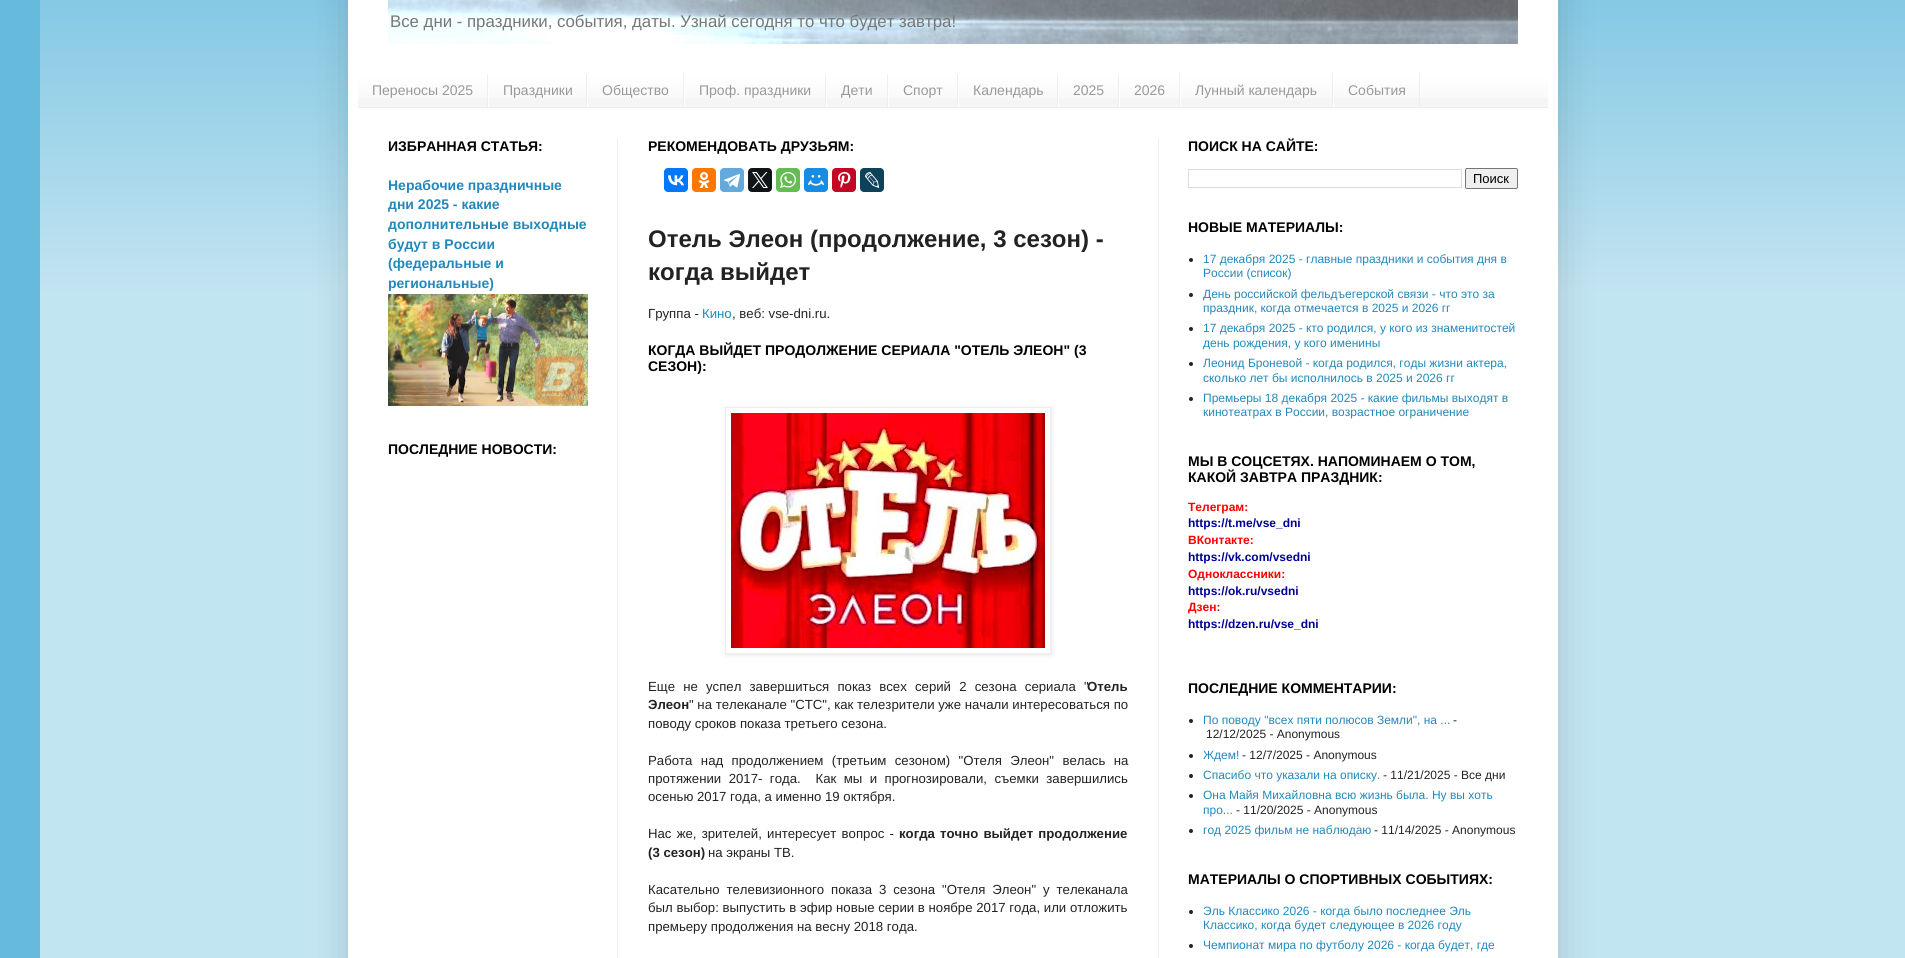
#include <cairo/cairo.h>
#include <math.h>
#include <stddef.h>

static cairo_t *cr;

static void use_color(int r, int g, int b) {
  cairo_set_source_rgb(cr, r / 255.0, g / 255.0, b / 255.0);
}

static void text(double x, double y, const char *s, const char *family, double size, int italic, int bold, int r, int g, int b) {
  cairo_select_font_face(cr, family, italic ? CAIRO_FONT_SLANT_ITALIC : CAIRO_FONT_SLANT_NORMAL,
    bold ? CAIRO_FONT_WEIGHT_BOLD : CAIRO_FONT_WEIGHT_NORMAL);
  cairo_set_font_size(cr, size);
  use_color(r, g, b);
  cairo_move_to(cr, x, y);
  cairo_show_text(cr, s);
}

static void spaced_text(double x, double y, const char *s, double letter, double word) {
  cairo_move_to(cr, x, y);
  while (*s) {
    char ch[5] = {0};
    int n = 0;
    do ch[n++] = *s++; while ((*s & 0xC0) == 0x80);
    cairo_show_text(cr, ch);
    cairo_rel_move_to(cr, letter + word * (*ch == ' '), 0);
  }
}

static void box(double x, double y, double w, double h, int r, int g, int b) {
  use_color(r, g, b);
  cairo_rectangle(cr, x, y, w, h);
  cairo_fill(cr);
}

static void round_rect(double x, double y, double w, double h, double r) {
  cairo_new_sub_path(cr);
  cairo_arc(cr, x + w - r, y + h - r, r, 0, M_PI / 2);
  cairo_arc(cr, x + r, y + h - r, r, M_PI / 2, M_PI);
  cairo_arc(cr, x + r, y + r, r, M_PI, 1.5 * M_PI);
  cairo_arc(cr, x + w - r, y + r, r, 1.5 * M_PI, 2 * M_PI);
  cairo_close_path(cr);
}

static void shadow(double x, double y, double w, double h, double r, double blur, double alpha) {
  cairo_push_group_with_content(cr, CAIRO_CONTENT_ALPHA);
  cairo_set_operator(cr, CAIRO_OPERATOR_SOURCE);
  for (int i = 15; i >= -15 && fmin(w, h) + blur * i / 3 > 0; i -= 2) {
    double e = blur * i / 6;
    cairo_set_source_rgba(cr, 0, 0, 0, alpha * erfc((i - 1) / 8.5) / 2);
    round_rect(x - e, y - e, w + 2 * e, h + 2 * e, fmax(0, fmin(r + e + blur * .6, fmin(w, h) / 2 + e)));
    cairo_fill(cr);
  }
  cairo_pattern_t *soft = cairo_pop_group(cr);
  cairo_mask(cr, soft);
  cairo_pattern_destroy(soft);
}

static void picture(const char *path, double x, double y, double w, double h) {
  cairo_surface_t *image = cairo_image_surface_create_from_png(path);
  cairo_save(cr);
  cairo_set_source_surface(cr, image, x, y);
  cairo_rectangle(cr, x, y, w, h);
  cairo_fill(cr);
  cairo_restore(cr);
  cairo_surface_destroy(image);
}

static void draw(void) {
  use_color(102, 187, 221);
  cairo_paint(cr);
  picture("img_01.png", 40, 0, 1865, 290);
  box(40, 290, 1865, 668, 194, 229, 242);
  use_color(0, 0, 0);
  shadow(348, -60, 1210, 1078, 0, 20, 0.15);
  box(348, 0, 1210, 958, 255, 255, 255);
  picture("img_02.png", 388, 0, 1130, 44);
  box(358, 75, 1190, 32, 245, 245, 245);
  picture("img_03.png", 358, 74, 1190, 24);
  box(358, 107, 1190, 1, 238, 238, 238);
  box(487, 74, 1, 33, 238, 238, 238);
  box(586, 74, 1, 33, 238, 238, 238);
  box(488, 85, 1, 22, 255, 255, 255);
  box(683, 74, 1, 33, 238, 238, 238);
  box(587, 85, 1, 22, 255, 255, 255);
  box(825, 74, 1, 33, 238, 238, 238);
  box(684, 85, 1, 22, 255, 255, 255);
  box(887, 74, 1, 33, 238, 238, 238);
  box(826, 85, 1, 22, 255, 255, 255);
  box(957, 74, 1, 33, 238, 238, 238);
  box(888, 85, 1, 22, 255, 255, 255);
  box(1057, 74, 1, 33, 238, 238, 238);
  box(958, 85, 1, 22, 255, 255, 255);
  box(1118, 74, 1, 33, 238, 238, 238);
  box(1058, 85, 1, 22, 255, 255, 255);
  box(1179, 74, 1, 33, 238, 238, 238);
  box(1119, 85, 1, 22, 255, 255, 255);
  box(1332, 74, 1, 33, 238, 238, 238);
  box(1180, 85, 1, 22, 255, 255, 255);
  box(1419, 74, 1, 33, 238, 238, 238);
  box(1333, 85, 1, 22, 255, 255, 255);
  picture("img_04.png", 388, 294, 200, 112);
  use_color(0, 119, 255);
  round_rect(664, 168, 24, 24, 4);
  cairo_fill(cr);
  picture("img_05.png", 668, 175, 16, 11);
  use_color(255, 119, 0);
  round_rect(692, 168, 24, 24, 4);
  cairo_fill(cr);
  picture("img_06.png", 698, 172, 12, 16);
  use_color(100, 169, 220);
  round_rect(720, 168, 24, 24, 4);
  cairo_fill(cr);
  picture("img_07.png", 724, 174, 16, 14);
  use_color(15, 20, 25);
  round_rect(748, 168, 24, 24, 4);
  cairo_fill(cr);
  picture("img_08.png", 752, 172, 16, 16);
  use_color(101, 188, 84);
  round_rect(776, 168, 24, 24, 4);
  cairo_fill(cr);
  picture("img_09.png", 780, 172, 16, 16);
  use_color(22, 141, 226);
  round_rect(804, 168, 24, 24, 4);
  cairo_fill(cr);
  picture("img_10.png", 808, 175, 16, 11);
  use_color(194, 7, 36);
  round_rect(832, 168, 24, 24, 4);
  cairo_fill(cr);
  picture("img_11.png", 838, 172, 13, 16);
  use_color(13, 66, 90);
  round_rect(860, 168, 24, 24, 4);
  cairo_fill(cr);
  picture("img_12.png", 865, 172, 15, 16);
  cairo_save(cr);
  cairo_set_fill_rule(cr, CAIRO_FILL_RULE_EVEN_ODD);
  cairo_new_path(cr);
  cairo_move_to(cr, 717, 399);
  cairo_line_to(cr, 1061, 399);
  cairo_line_to(cr, 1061, 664);
  cairo_line_to(cr, 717, 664);
  cairo_close_path(cr);
  cairo_move_to(cr, 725, 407);
  cairo_line_to(cr, 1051, 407);
  cairo_line_to(cr, 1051, 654);
  cairo_line_to(cr, 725, 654);
  cairo_close_path(cr);
  cairo_clip(cr);
  use_color(0, 0, 0);
  shadow(726, 408, 326, 247, 0, 2.5, 0.1);
  cairo_restore(cr);
  cairo_rectangle(cr, 725.5, 407.5, 325, 246);
  use_color(238, 238, 238);
  cairo_set_line_width(cr, 1);
  cairo_stroke(cr);
  picture("img_13.png", 731, 413, 314, 235);
  cairo_rectangle(cr, 1188.5, 169.5, 273, 18);
  use_color(221, 221, 221);
  cairo_stroke(cr);
  use_color(239, 239, 239);
  round_rect(1465.5, 168.5, 52, 20, 1.5);
  cairo_fill_preserve(cr);
  use_color(118, 118, 118);
  cairo_stroke(cr);
  use_color(34, 34, 34);
  cairo_arc(cr, 1191, 260, 2, 0, 2 * M_PI);
  cairo_fill(cr);
  cairo_arc(cr, 1191, 295, 2, 0, 2 * M_PI);
  cairo_fill(cr);
  cairo_arc(cr, 1191, 329, 2, 0, 2 * M_PI);
  cairo_fill(cr);
  cairo_arc(cr, 1191, 364, 2, 0, 2 * M_PI);
  cairo_fill(cr);
  cairo_arc(cr, 1191, 399, 2, 0, 2 * M_PI);
  cairo_fill(cr);
  cairo_arc(cr, 1191, 721, 2, 0, 2 * M_PI);
  cairo_fill(cr);
  cairo_arc(cr, 1191, 756, 2, 0, 2 * M_PI);
  cairo_fill(cr);
  cairo_arc(cr, 1191, 776, 2, 0, 2 * M_PI);
  cairo_fill(cr);
  cairo_arc(cr, 1191, 796, 2, 0, 2 * M_PI);
  cairo_fill(cr);
  cairo_arc(cr, 1191, 831, 2, 0, 2 * M_PI);
  cairo_fill(cr);
  cairo_arc(cr, 1191, 912, 2, 0, 2 * M_PI);
  cairo_fill(cr);
  cairo_arc(cr, 1191, 946, 2, 0, 2 * M_PI);
  cairo_fill(cr);
  box(617, 138, 1, 820, 238, 238, 238);
  box(1158, 138, 1, 820, 238, 238, 238);
  text(390, 27, "Все дни - праздники, события, даты. Узнай сегодня то что будет завтра!", "Liberation Sans", 16.8, 0, 0, 119, 119, 119);
  text(372, 95, "Переносы 2025", "Liberation Sans", 14, 0, 0, 153, 153, 153);
  text(503, 95, "Праздники", "Liberation Sans", 14, 0, 0, 153, 153, 153);
  text(602, 95, "Общество", "Liberation Sans", 14, 0, 0, 153, 153, 153);
  text(699, 95, "Проф. праздники", "Liberation Sans", 14, 0, 0, 153, 153, 153);
  text(841, 95, "Дети", "Liberation Sans", 14, 0, 0, 153, 153, 153);
  text(903, 95, "Спорт", "Liberation Sans", 14, 0, 0, 153, 153, 153);
  text(973, 95, "Календарь", "Liberation Sans", 14, 0, 0, 153, 153, 153);
  text(1073, 95, "2025", "Liberation Sans", 14, 0, 0, 153, 153, 153);
  text(1134, 95, "2026", "Liberation Sans", 14, 0, 0, 153, 153, 153);
  text(1195, 95, "Лунный календарь", "Liberation Sans", 14, 0, 0, 153, 153, 153);
  text(1348, 95, "События", "Liberation Sans", 14, 0, 0, 153, 153, 153);
  text(388, 151, "ИЗБРАННАЯ СТАТЬЯ:", "Liberation Sans", 14, 0, 1, 0, 0, 0);
  text(388, 190, "Нерабочие праздничные", "Liberation Sans", 14, 0, 1, 34, 136, 187);
  text(388, 209, "дни 2025 - какие", "Liberation Sans", 14, 0, 1, 34, 136, 187);
  text(388, 229, "дополнительные выходные", "Liberation Sans", 14, 0, 1, 34, 136, 187);
  text(388, 249, "будут в России", "Liberation Sans", 14, 0, 1, 34, 136, 187);
  text(388, 268, "(федеральные и", "Liberation Sans", 14, 0, 1, 34, 136, 187);
  text(388, 288, "региональные)", "Liberation Sans", 14, 0, 1, 34, 136, 187);
  text(388, 454, "ПОСЛЕДНИЕ НОВОСТИ:", "Liberation Sans", 14, 0, 1, 0, 0, 0);
  text(648, 151, "РЕКОМЕНДОВАТЬ ДРУЗЬЯМ:", "Liberation Sans", 14, 0, 1, 0, 0, 0);
  text(648, 247, "Отель Элеон (продолжение, 3 сезон) -", "Liberation Sans", 24, 0, 1, 34, 34, 34);
  text(648, 280, "когда выйдет", "Liberation Sans", 24, 0, 1, 34, 34, 34);
  text(648, 318, "Группа -", "Liberation Sans", 13.2, 0, 0, 34, 34, 34);
  text(702, 318, "Кино", "Liberation Sans", 13.2, 0, 0, 34, 136, 187);
  text(732, 318, ", веб: vse-dni.ru.", "Liberation Sans", 13.2, 0, 0, 34, 34, 34);
  text(648, 355, "КОГДА ВЫЙДЕТ ПРОДОЛЖЕНИЕ СЕРИАЛА \"ОТЕЛЬ ЭЛЕОН\" (3", "Liberation Sans", 14, 0, 1, 0, 0, 0);
  text(648, 371, "СЕЗОН):", "Liberation Sans", 14, 0, 1, 0, 0, 0);
  cairo_select_font_face(cr, "Liberation Sans", CAIRO_FONT_SLANT_NORMAL, CAIRO_FONT_WEIGHT_NORMAL);
  cairo_set_font_size(cr, 13.2);
  use_color(34, 34, 34);
  spaced_text(648, 691, "Еще не успел завершиться показ всех серий 2 сезона сериала \"", 0, 4.5);
  text(1087, 691, "Отель", "Liberation Sans", 13.2, 0, 1, 34, 34, 34);
  text(648, 709, "Элеон", "Liberation Sans", 13.2, 0, 1, 34, 34, 34);
  text(689, 709, "\" на телеканале \"СТС\", как телезрители уже начали интересоваться по", "Liberation Sans", 13.2, 0, 0, 34, 34, 34);
  text(648, 728, "поводу сроков показа третьего сезона.", "Liberation Sans", 13.2, 0, 0, 34, 34, 34);
  spaced_text(648, 765, "Работа над продолжением (третьим сезоном) \"Отеля Элеон\" велась на", 0, 4.75);
  spaced_text(648, 783, "протяжении 2017- года.  Как мы и прогнозировали, съемки завершились", 0, 3.75);
  text(648, 801, "осенью 2017 года, а именно 19 октября.", "Liberation Sans", 13.2, 0, 0, 34, 34, 34);
  spaced_text(648, 838, "Нас же, зрителей, интересует вопрос -", 0, 1.5);
  cairo_select_font_face(cr, "Liberation Sans", CAIRO_FONT_SLANT_NORMAL, CAIRO_FONT_WEIGHT_BOLD);
  spaced_text(899, 838, "когда точно выйдет продолжение", 0, 1.5);
  text(648, 857, "(3 сезон)", "Liberation Sans", 13.2, 0, 1, 34, 34, 34);
  text(708, 857, "на экраны ТВ.", "Liberation Sans", 13.2, 0, 0, 34, 34, 34);
  spaced_text(648, 894, "Касательно телевизионного показа 3 сезона \"Отеля Элеон\" у телеканала", 0, 3.25);
  text(648, 912, "был выбор: выпустить в эфир новые серии в ноябре 2017 года, или отложить", "Liberation Sans", 13.2, 0, 0, 34, 34, 34);
  text(648, 931, "премьеру продолжения на весну 2018 года.", "Liberation Sans", 13.2, 0, 0, 34, 34, 34);
  text(1188, 151, "ПОИСК НА САЙТЕ:", "Liberation Sans", 14, 0, 1, 0, 0, 0);
  text(1473, 183, "Поиск", "Liberation Sans", 13, 0, 0, 0, 0, 0);
  text(1188, 232, "НОВЫЕ МАТЕРИАЛЫ:", "Liberation Sans", 14, 0, 1, 0, 0, 0);
  text(1203, 263, "17 декабря 2025 - главные праздники и события дня в", "Liberation Sans", 12, 0, 0, 34, 136, 187);
  text(1203, 277, "России (список)", "Liberation Sans", 12, 0, 0, 34, 136, 187);
  text(1203, 298, "День российской фельдъегерской связи - что это за", "Liberation Sans", 12, 0, 0, 34, 136, 187);
  text(1203, 312, "праздник, когда отмечается в 2025 и 2026 гг", "Liberation Sans", 12, 0, 0, 34, 136, 187);
  text(1203, 332, "17 декабря 2025 - кто родился, у кого из знаменитостей", "Liberation Sans", 12, 0, 0, 34, 136, 187);
  text(1203, 347, "день рождения, у кого именины", "Liberation Sans", 12, 0, 0, 34, 136, 187);
  text(1203, 367, "Леонид Броневой - когда родился, годы жизни актера,", "Liberation Sans", 12, 0, 0, 34, 136, 187);
  text(1203, 382, "сколько лет бы исполнилось в 2025 и 2026 гг", "Liberation Sans", 12, 0, 0, 34, 136, 187);
  text(1203, 402, "Премьеры 18 декабря 2025 - какие фильмы выходят в", "Liberation Sans", 12, 0, 0, 34, 136, 187);
  text(1203, 416, "кинотеатрах в России, возрастное ограничение", "Liberation Sans", 12, 0, 0, 34, 136, 187);
  text(1188, 466, "МЫ В СОЦСЕТЯХ. НАПОМИНАЕМ О ТОМ,", "Liberation Sans", 14, 0, 1, 0, 0, 0);
  text(1188, 482, "КАКОЙ ЗАВТРА ПРАЗДНИК:", "Liberation Sans", 14, 0, 1, 0, 0, 0);
  text(1188, 511, "Телеграм:", "Liberation Sans", 12, 0, 1, 255, 0, 0);
  text(1188, 527, "https://t.me/vse_dni", "Liberation Sans", 12, 0, 1, 0, 0, 153);
  text(1188, 544, "ВКонтакте:", "Liberation Sans", 12, 0, 1, 255, 0, 0);
  text(1188, 561, "https://vk.com/vsedni", "Liberation Sans", 12, 0, 1, 0, 0, 153);
  text(1188, 578, "Одноклассники:", "Liberation Sans", 12, 0, 1, 255, 0, 0);
  text(1188, 595, "https://ok.ru/vsedni", "Liberation Sans", 12, 0, 1, 0, 0, 153);
  text(1188, 611, "Дзен:", "Liberation Sans", 12, 0, 1, 255, 0, 0);
  text(1188, 628, "https://dzen.ru/vse_dni", "Liberation Sans", 12, 0, 1, 0, 0, 153);
  text(1188, 693, "ПОСЛЕДНИЕ КОММЕНТАРИИ:", "Liberation Sans", 14, 0, 1, 0, 0, 0);
  text(1203, 724, "По поводу \"всех пяти полюсов Земли\", на ...", "Liberation Sans", 12, 0, 0, 34, 136, 187);
  text(1453, 724, "-", "Liberation Sans", 12, 0, 0, 34, 34, 34);
  text(1206, 738, "12/12/2025 - Anonymous", "Liberation Sans", 12, 0, 0, 34, 34, 34);
  text(1203, 759, "Ждем!", "Liberation Sans", 12, 0, 0, 34, 136, 187);
  text(1242, 759, "- 12/7/2025 - Anonymous", "Liberation Sans", 12, 0, 0, 34, 34, 34);
  text(1203, 779, "Спасибо что указали на описку.", "Liberation Sans", 12, 0, 0, 34, 136, 187);
  text(1383, 779, "- 11/21/2025 - Все дни", "Liberation Sans", 12, 0, 0, 34, 34, 34);
  text(1203, 799, "Она Майя Михайловна всю жизнь была. Ну вы хоть", "Liberation Sans", 12, 0, 0, 34, 136, 187);
  text(1203, 814, "про...", "Liberation Sans", 12, 0, 0, 34, 136, 187);
  text(1236, 814, "- 11/20/2025 - Anonymous", "Liberation Sans", 12, 0, 0, 34, 34, 34);
  text(1203, 834, "год 2025 фильм не наблюдаю", "Liberation Sans", 12, 0, 0, 34, 136, 187);
  text(1374, 834, "- 11/14/2025 - Anonymous", "Liberation Sans", 12, 0, 0, 34, 34, 34);
  text(1188, 884, "МАТЕРИАЛЫ О СПОРТИВНЫХ СОБЫТИЯХ:", "Liberation Sans", 14, 0, 1, 0, 0, 0);
  text(1203, 915, "Эль Классико 2026 - когда было последнее Эль", "Liberation Sans", 12, 0, 0, 34, 136, 187);
  text(1203, 929, "Классико, когда будет следующее в 2026 году", "Liberation Sans", 12, 0, 0, 34, 136, 187);
  text(1203, 949, "Чемпионат мира по футболу 2026 - когда будет, где", "Liberation Sans", 12, 0, 0, 34, 136, 187);
}

int main(void) {
  cairo_surface_t *surface = cairo_image_surface_create(CAIRO_FORMAT_RGB24, 1905, 958);
  cr = cairo_create(surface);
  cairo_font_options_t *options = cairo_font_options_create();
  cairo_font_options_set_hint_metrics(options, CAIRO_HINT_METRICS_OFF);
  cairo_font_options_set_hint_style(options, CAIRO_HINT_STYLE_NONE);
  cairo_set_font_options(cr, options);
  cairo_set_miter_limit(cr, 4);
  draw();
  cairo_surface_write_to_png(surface, "out.png");
  cairo_font_options_destroy(options);
  cairo_destroy(cr);
  cairo_surface_destroy(surface);
  return 0;
}
